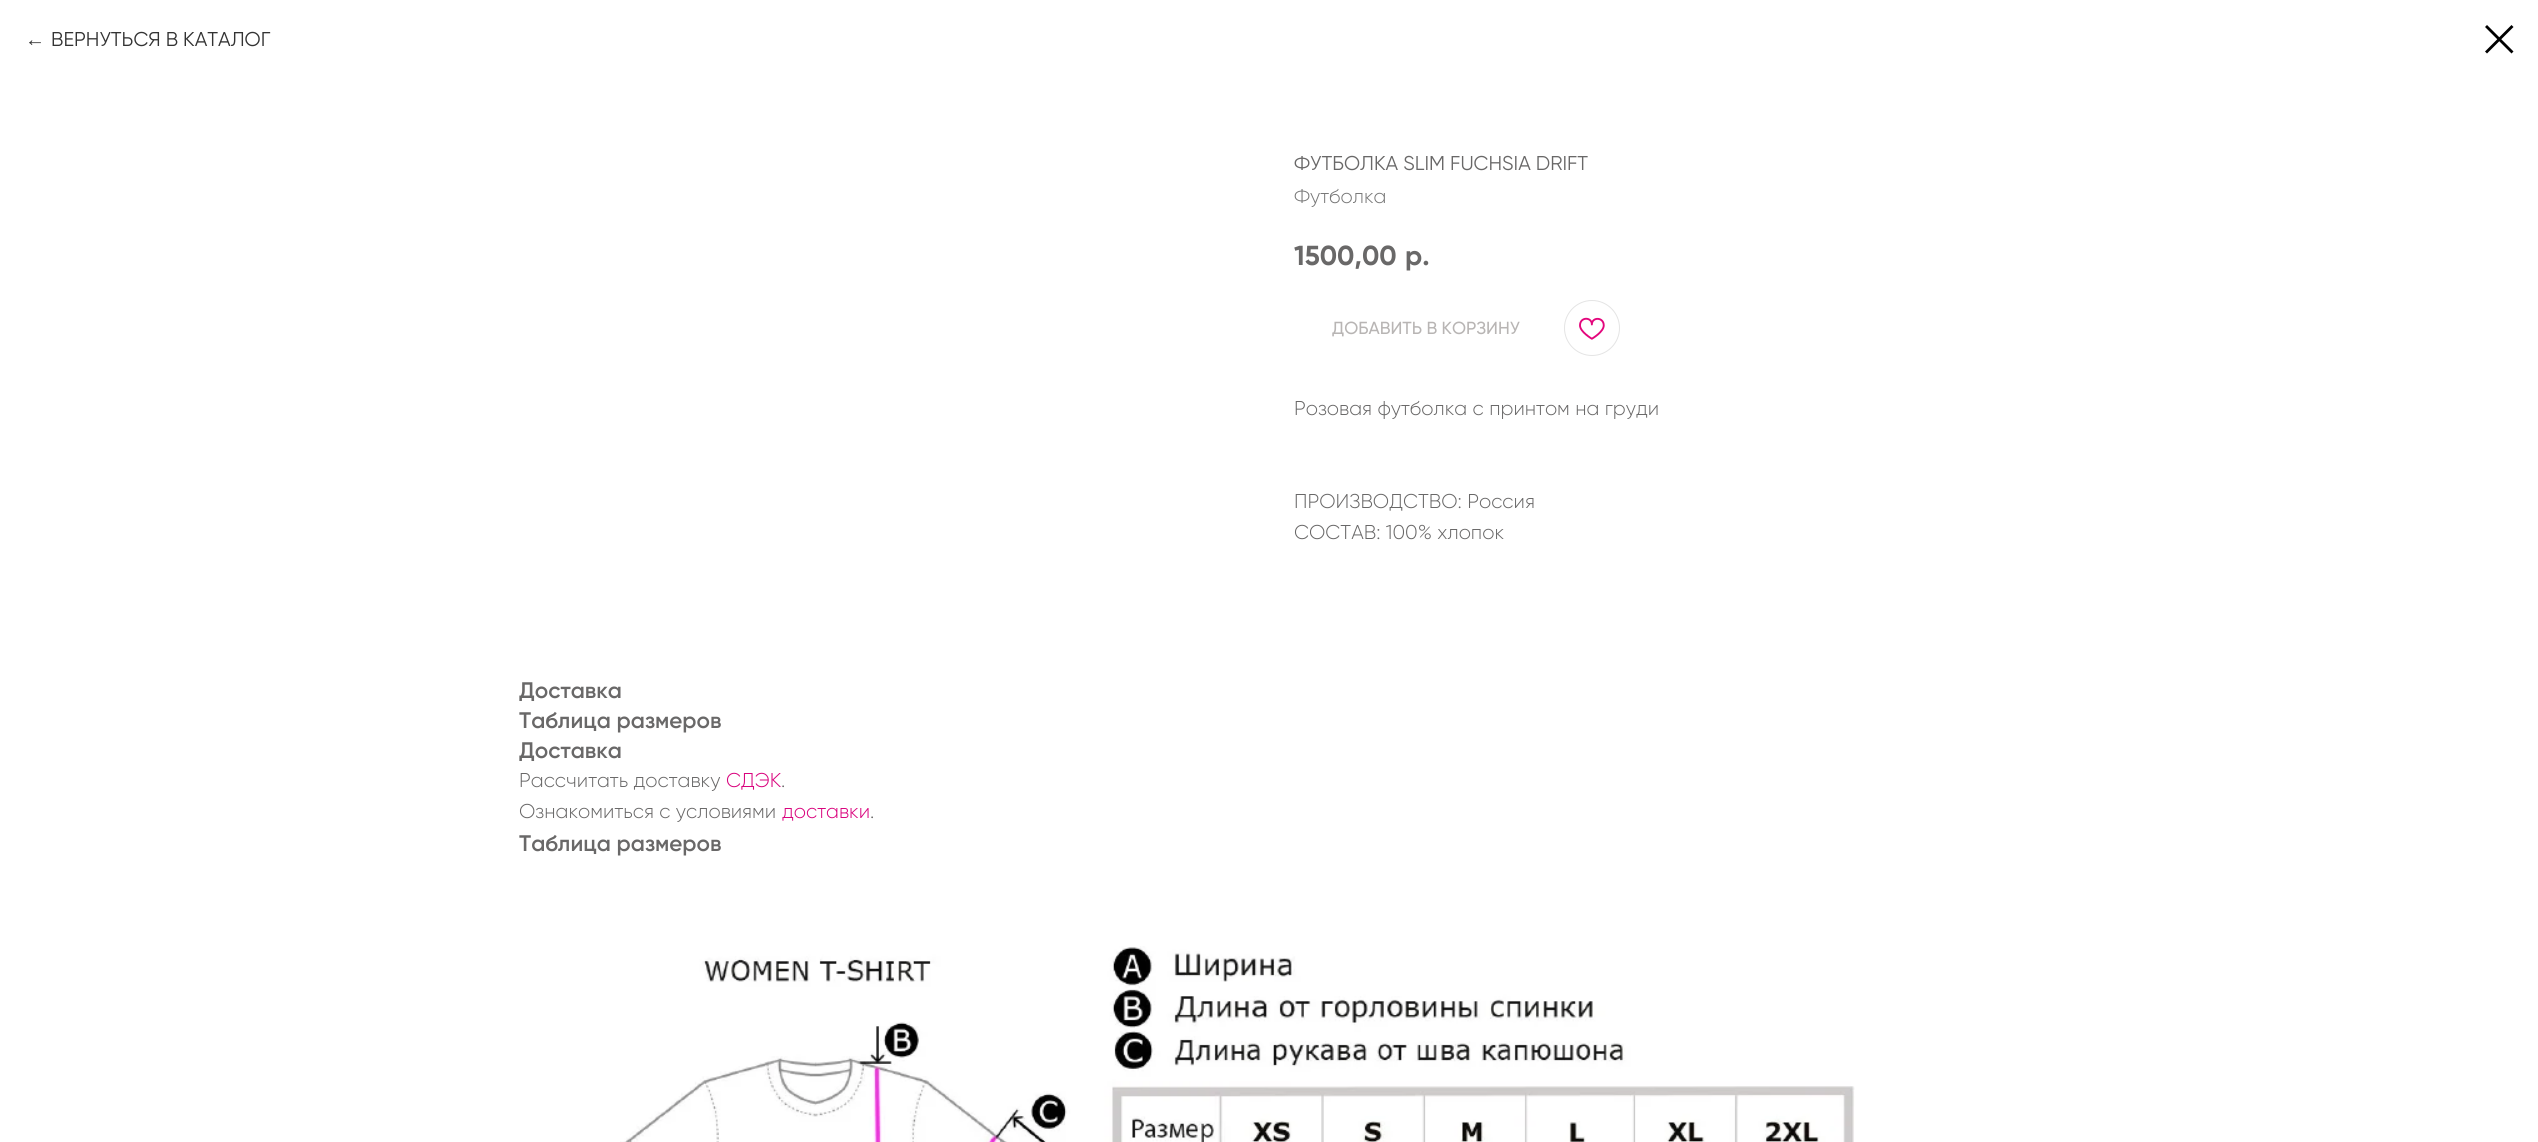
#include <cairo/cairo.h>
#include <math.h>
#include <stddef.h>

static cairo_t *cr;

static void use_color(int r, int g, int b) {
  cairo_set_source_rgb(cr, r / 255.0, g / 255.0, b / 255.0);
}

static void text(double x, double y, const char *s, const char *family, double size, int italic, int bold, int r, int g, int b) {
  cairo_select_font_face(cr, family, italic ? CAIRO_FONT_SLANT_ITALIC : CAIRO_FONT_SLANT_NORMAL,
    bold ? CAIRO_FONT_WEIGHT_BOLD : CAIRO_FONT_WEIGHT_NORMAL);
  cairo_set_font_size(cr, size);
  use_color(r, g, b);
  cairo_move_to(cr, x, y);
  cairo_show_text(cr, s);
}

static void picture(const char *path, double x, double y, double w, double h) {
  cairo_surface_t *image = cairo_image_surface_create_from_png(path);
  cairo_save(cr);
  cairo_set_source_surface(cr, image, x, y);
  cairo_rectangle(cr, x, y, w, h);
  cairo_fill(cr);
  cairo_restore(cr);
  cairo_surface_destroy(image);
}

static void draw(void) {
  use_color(255, 255, 255);
  cairo_paint(cr);
  use_color(0, 0, 0);
  cairo_set_fill_rule(cr, CAIRO_FILL_RULE_EVEN_ODD);
  cairo_new_path(cr);
  cairo_move_to(cr, 2485, 27);
  cairo_line_to(cr, 2487, 25);
  cairo_line_to(cr, 2513.5, 51.5);
  cairo_line_to(cr, 2511.5, 53.5);
  cairo_close_path(cr);
  cairo_fill(cr);
  cairo_new_path(cr);
  cairo_move_to(cr, 2511.5, 25);
  cairo_line_to(cr, 2513.5, 27);
  cairo_line_to(cr, 2487, 53.5);
  cairo_line_to(cr, 2485, 51.5);
  cairo_close_path(cr);
  cairo_fill(cr);
  cairo_arc(cr, 1592, 328, 27.5, 0, 2 * M_PI);
  use_color(228, 228, 228);
  cairo_set_line_width(cr, 1);
  cairo_stroke(cr);
  picture("img_01.png", 1579, 317, 26, 23);
  picture("img_02.png", 620, 946, 1235, 196);
  text(25, 46, "←", "Liberation Sans", 20, 0, 0, 51, 51, 51);
  text(51, 46, "ВЕРНУТЬСЯ В КАТАЛОГ", "Gilroy", 20, 0, 0, 51, 51, 51);
  text(1294, 170, "ФУТБОЛКА SLIM FUCHSIA DRIFT", "Gilroy", 20, 0, 0, 105, 104, 104);
  text(1294, 203, "Футболка", "Gilroy Light", 20, 0, 0, 119, 119, 119);
  text(1294, 265, "1500,00", "Gilroy", 27.5, 0, 1, 105, 104, 104);
  text(1405, 265, "р.", "Gilroy", 27.5, 0, 1, 105, 104, 104);
  text(1332, 334, "ДОБАВИТЬ В КОРЗИНУ", "Gilroy Medium", 17.5, 0, 0, 184, 181, 180);
  text(1294, 415, "Розовая футболка с принтом на груди", "Gilroy Light", 20, 0, 0, 105, 104, 104);
  text(1294, 508, "ПРОИЗВОДСТВО: Россия", "Gilroy Light", 20, 0, 0, 105, 104, 104);
  text(1294, 539, "СОСТАВ: 100% хлопок", "Gilroy Light", 20, 0, 0, 105, 104, 104);
  text(519, 698, "Доставка", "Gilroy SemiBold", 22.5, 0, 0, 105, 104, 104);
  text(519, 728, "Таблица размеров", "Gilroy SemiBold", 22.5, 0, 0, 105, 104, 104);
  text(519, 758, "Доставка", "Gilroy SemiBold", 22.5, 0, 0, 105, 104, 104);
  text(519, 787, "Рассчитать доставку", "Gilroy Light", 20, 0, 0, 105, 104, 104);
  text(726, 787, "СДЭК", "Gilroy Light", 20, 0, 0, 217, 2, 125);
  text(781, 787, ".", "Gilroy Light", 20, 0, 0, 105, 104, 104);
  text(519, 818, "Ознакомиться с условиями", "Gilroy Light", 20, 0, 0, 105, 104, 104);
  text(782, 818, "доставки", "Gilroy Light", 20, 0, 0, 217, 2, 125);
  text(870, 818, ".", "Gilroy Light", 20, 0, 0, 105, 104, 104);
  text(519, 851, "Таблица размеров", "Gilroy SemiBold", 22.5, 0, 0, 105, 104, 104);
}

int main(void) {
  cairo_surface_t *surface = cairo_image_surface_create(CAIRO_FORMAT_RGB24, 2538, 1142);
  cr = cairo_create(surface);
  cairo_font_options_t *options = cairo_font_options_create();
  cairo_font_options_set_hint_metrics(options, CAIRO_HINT_METRICS_OFF);
  cairo_font_options_set_hint_style(options, CAIRO_HINT_STYLE_NONE);
  cairo_set_font_options(cr, options);
  cairo_set_miter_limit(cr, 4);
  draw();
  cairo_surface_write_to_png(surface, "out.png");
  cairo_font_options_destroy(options);
  cairo_destroy(cr);
  cairo_surface_destroy(surface);
  return 0;
}
